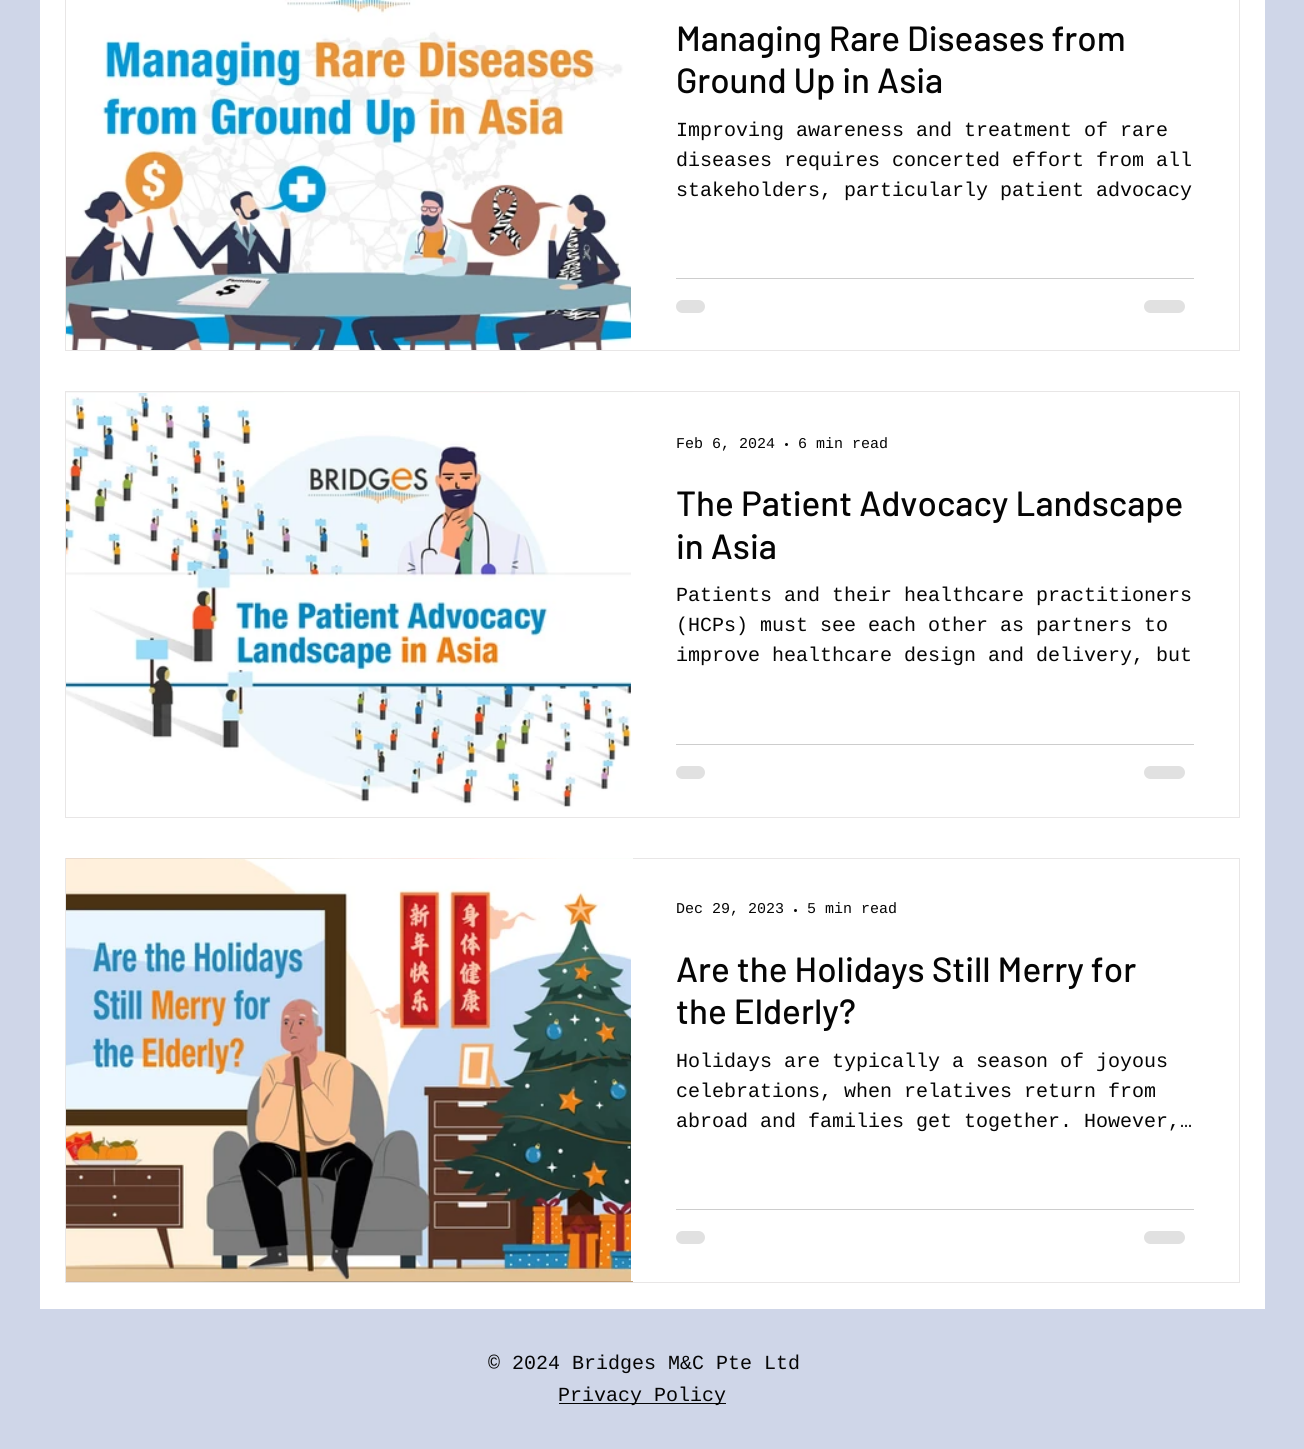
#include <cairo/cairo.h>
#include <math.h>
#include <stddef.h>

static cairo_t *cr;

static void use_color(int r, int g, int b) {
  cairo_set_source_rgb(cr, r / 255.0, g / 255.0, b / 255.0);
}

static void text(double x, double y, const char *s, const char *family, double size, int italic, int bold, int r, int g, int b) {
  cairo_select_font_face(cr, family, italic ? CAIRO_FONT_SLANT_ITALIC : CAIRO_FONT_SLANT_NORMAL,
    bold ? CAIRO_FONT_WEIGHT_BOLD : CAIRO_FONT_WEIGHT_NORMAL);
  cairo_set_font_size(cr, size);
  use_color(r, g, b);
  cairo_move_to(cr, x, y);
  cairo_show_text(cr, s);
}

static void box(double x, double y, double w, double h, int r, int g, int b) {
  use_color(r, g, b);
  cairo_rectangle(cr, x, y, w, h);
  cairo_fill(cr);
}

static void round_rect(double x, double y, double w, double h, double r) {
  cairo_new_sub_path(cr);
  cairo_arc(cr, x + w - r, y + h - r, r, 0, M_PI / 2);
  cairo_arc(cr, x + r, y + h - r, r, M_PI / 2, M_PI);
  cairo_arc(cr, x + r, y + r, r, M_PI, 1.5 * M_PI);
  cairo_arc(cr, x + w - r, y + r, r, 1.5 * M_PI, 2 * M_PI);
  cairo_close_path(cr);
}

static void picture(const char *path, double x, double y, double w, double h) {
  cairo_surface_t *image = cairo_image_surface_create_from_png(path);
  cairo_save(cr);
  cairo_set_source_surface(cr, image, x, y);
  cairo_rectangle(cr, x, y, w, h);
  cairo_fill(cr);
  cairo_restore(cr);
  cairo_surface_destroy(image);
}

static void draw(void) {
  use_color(207, 214, 232);
  cairo_paint(cr);
  box(40, 0, 1225, 1309, 255, 255, 255);
  cairo_rectangle(cr, 65.5, -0.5, 1174, 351);
  use_color(232, 230, 230);
  cairo_set_line_width(cr, 1);
  cairo_stroke(cr);
  picture("img_01.png", 66, 0, 565, 350);
  box(676, 278, 518, 1, 205, 205, 205);
  use_color(225, 225, 225);
  round_rect(676, 300, 29, 13, 6.5);
  cairo_fill(cr);
  round_rect(1144, 300, 41, 13, 6.5);
  cairo_fill(cr);
  cairo_rectangle(cr, 65.5, 391.5, 1174, 426);
  use_color(232, 230, 230);
  cairo_stroke(cr);
  picture("img_02.png", 66, 392, 567, 1);
  picture("img_03.png", 66, 393, 565, 423);
  use_color(5, 5, 5);
  cairo_arc(cr, 786.5, 444.5, 1.5, 0, 2 * M_PI);
  cairo_fill(cr);
  box(676, 744, 518, 1, 205, 205, 205);
  use_color(225, 225, 225);
  round_rect(676, 766, 29, 13, 6.5);
  cairo_fill(cr);
  round_rect(1144, 766, 41, 13, 6.5);
  cairo_fill(cr);
  cairo_rectangle(cr, 65.5, 858.5, 1174, 424);
  use_color(232, 230, 230);
  cairo_stroke(cr);
  picture("img_04.png", 66, 858, 567, 424);
  picture("img_05.png", 66, 859, 565, 422);
  box(631, 859, 2, 422, 255, 255, 255);
  use_color(5, 5, 5);
  cairo_arc(cr, 795.5, 910.5, 1.5, 0, 2 * M_PI);
  cairo_fill(cr);
  box(676, 1209, 518, 1, 205, 205, 205);
  use_color(225, 225, 225);
  round_rect(676, 1231, 29, 13, 6.5);
  cairo_fill(cr);
  round_rect(1144, 1231, 41, 13, 6.5);
  cairo_fill(cr);
  box(559, 1403, 167, 1, 5, 5, 5);
  text(676, 51, "Managing Rare Diseases from", "Barlow Medium", 35, 0, 0, 5, 5, 5);
  text(676, 93, "Ground Up in Asia", "Barlow Medium", 35, 0, 0, 5, 5, 5);
  text(676, 136, "Improving awareness and treatment of rare", "Liberation Mono", 20, 0, 0, 5, 5, 5);
  text(676, 166, "diseases requires concerted effort from all", "Liberation Mono", 20, 0, 0, 5, 5, 5);
  text(676, 196, "stakeholders, particularly patient advocacy", "Liberation Mono", 20, 0, 0, 5, 5, 5);
  text(676, 448, "Feb 6, 2024", "Liberation Mono", 15, 0, 0, 5, 5, 5);
  text(798, 448, "6 min read", "Liberation Mono", 15, 0, 0, 5, 5, 5);
  text(676, 516, "The Patient Advocacy Landscape", "Barlow Medium", 35, 0, 0, 5, 5, 5);
  text(676, 559, "in Asia", "Barlow Medium", 35, 0, 0, 5, 5, 5);
  text(676, 601, "Patients and their healthcare practitioners", "Liberation Mono", 20, 0, 0, 5, 5, 5);
  text(676, 631, "(HCPs) must see each other as partners to", "Liberation Mono", 20, 0, 0, 5, 5, 5);
  text(676, 661, "improve healthcare design and delivery, but", "Liberation Mono", 20, 0, 0, 5, 5, 5);
  text(676, 913, "Dec 29, 2023", "Liberation Mono", 15, 0, 0, 5, 5, 5);
  text(807, 913, "5 min read", "Liberation Mono", 15, 0, 0, 5, 5, 5);
  text(676, 982, "Are the Holidays Still Merry for", "Barlow Medium", 35, 0, 0, 5, 5, 5);
  text(676, 1024, "the Elderly?", "Barlow Medium", 35, 0, 0, 5, 5, 5);
  text(676, 1067, "Holidays are typically a season of joyous", "Liberation Mono", 20, 0, 0, 5, 5, 5);
  text(676, 1097, "celebrations, when relatives return from", "Liberation Mono", 20, 0, 0, 5, 5, 5);
  text(676, 1127, "abroad and families get together. However,…", "Liberation Mono", 20, 0, 0, 5, 5, 5);
  text(488, 1369, "© 2024 Bridges M&C Pte Ltd", "Liberation Mono", 20, 0, 0, 5, 5, 5);
  text(558, 1401, "Privacy Policy", "Liberation Mono", 20, 0, 0, 5, 5, 5);
}

int main(void) {
  cairo_surface_t *surface = cairo_image_surface_create(CAIRO_FORMAT_RGB24, 1304, 1449);
  cr = cairo_create(surface);
  cairo_font_options_t *options = cairo_font_options_create();
  cairo_font_options_set_hint_metrics(options, CAIRO_HINT_METRICS_OFF);
  cairo_font_options_set_hint_style(options, CAIRO_HINT_STYLE_NONE);
  cairo_set_font_options(cr, options);
  cairo_set_miter_limit(cr, 4);
  draw();
  cairo_surface_write_to_png(surface, "out.png");
  cairo_font_options_destroy(options);
  cairo_destroy(cr);
  cairo_surface_destroy(surface);
  return 0;
}
